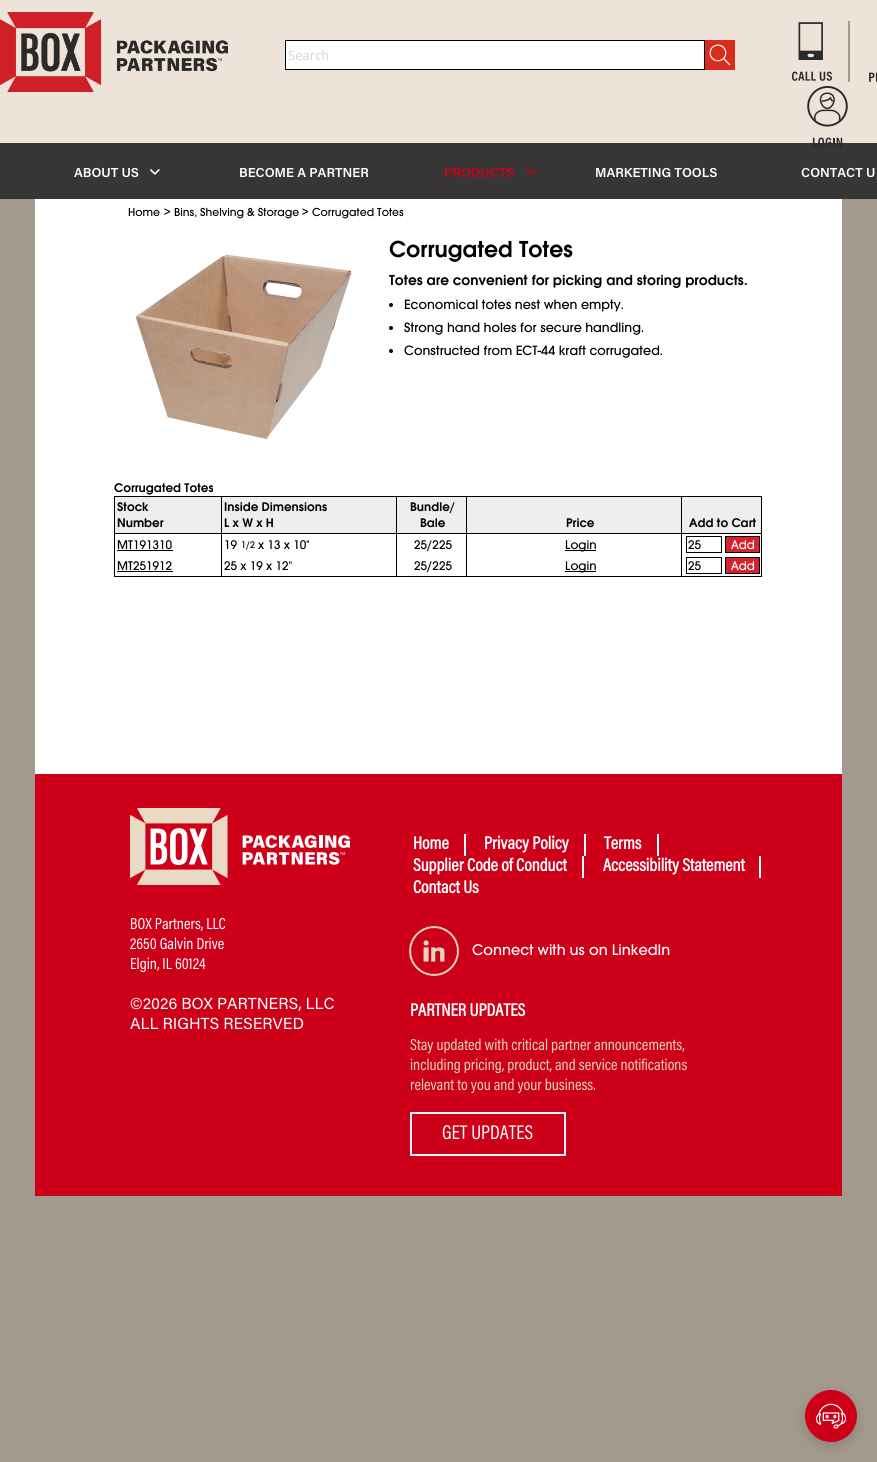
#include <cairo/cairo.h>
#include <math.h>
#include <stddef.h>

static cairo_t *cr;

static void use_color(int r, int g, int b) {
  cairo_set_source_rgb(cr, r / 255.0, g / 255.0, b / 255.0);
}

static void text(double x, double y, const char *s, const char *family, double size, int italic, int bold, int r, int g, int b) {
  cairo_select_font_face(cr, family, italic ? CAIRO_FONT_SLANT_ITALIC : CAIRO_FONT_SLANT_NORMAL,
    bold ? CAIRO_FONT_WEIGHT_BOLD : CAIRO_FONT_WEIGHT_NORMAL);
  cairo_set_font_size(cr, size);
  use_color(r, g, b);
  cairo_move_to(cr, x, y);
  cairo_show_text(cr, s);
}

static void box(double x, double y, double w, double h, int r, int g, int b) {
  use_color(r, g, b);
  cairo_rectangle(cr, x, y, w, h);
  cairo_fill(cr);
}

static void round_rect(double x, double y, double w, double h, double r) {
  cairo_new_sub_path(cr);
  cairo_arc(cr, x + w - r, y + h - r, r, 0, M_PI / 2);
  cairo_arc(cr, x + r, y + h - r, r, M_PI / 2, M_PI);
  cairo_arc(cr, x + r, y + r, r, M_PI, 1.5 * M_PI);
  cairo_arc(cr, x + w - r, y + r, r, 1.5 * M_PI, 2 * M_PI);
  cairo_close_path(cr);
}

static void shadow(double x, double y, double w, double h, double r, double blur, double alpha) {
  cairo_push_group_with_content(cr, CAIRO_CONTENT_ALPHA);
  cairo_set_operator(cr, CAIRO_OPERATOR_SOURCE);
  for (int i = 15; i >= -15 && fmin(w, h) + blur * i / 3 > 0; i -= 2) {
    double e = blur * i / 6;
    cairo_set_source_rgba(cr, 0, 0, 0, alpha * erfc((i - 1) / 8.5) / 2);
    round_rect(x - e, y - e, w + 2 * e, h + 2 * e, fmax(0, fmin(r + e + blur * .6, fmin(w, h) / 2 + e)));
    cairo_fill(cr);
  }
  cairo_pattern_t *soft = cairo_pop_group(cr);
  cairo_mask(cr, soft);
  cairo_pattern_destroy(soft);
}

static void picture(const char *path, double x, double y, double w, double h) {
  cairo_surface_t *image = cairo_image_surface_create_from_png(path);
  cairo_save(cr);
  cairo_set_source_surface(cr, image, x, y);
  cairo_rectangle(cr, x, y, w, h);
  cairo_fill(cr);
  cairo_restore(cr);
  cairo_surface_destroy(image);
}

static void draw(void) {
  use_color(162, 154, 140);
  cairo_paint(cr);
  box(0, 0, 877, 143, 237, 227, 217);
  picture("img_01.png", 0, 12, 228, 80);
  use_color(255, 255, 255);
  cairo_rectangle(cr, 285.5, 40.5, 419, 29);
  cairo_fill_preserve(cr);
  use_color(0, 0, 0);
  cairo_set_line_width(cr, 1);
  cairo_stroke(cr);
  picture("img_02.png", 705, 40, 30, 30);
  box(848, 21, 2, 61, 162, 154, 140);
  picture("img_03.png", 792, 22, 40, 59);
  picture("img_04.png", 869, 72, 8, 10);
  box(0, 143, 877, 56, 55, 53, 53);
  picture("img_05.png", 807, 86, 41, 61);
  picture("img_06.png", 150, 169, 10, 6);
  picture("img_07.png", 526, 169, 10, 6);
  box(35, 199, 807, 575, 255, 255, 255);
  picture("img_08.png", 135, 254, 217, 186);
  use_color(0, 0, 0);
  cairo_arc(cr, 391, 305, 2, 0, 2 * M_PI);
  cairo_fill(cr);
  cairo_arc(cr, 391, 328, 2, 0, 2 * M_PI);
  cairo_fill(cr);
  cairo_arc(cr, 391, 351, 2, 0, 2 * M_PI);
  cairo_fill(cr);
  box(114, 496, 648, 1, 0, 0, 0);
  box(761, 497, 1, 79, 0, 0, 0);
  box(114, 497, 1, 79, 0, 0, 0);
  box(115, 497, 646, 36, 238, 238, 238);
  box(114, 533, 648, 1, 0, 0, 0);
  box(117, 550, 56, 1, 0, 0, 0);
  box(565, 550, 31, 1, 0, 0, 0);
  cairo_rectangle(cr, 686.5, 536.5, 35, 16);
  cairo_stroke(cr);
  use_color(212, 35, 45);
  cairo_rectangle(cr, 725.5, 536.5, 34, 16);
  cairo_fill_preserve(cr);
  use_color(0, 0, 0);
  cairo_stroke(cr);
  box(221, 497, 1, 80, 0, 0, 0);
  box(117, 571, 56, 1, 0, 0, 0);
  box(396, 497, 1, 80, 0, 0, 0);
  box(466, 497, 1, 80, 0, 0, 0);
  box(681, 497, 1, 80, 0, 0, 0);
  box(565, 571, 31, 1, 0, 0, 0);
  cairo_rectangle(cr, 686.5, 557.5, 35, 16);
  cairo_stroke(cr);
  use_color(212, 35, 45);
  cairo_rectangle(cr, 725.5, 557.5, 34, 16);
  cairo_fill_preserve(cr);
  use_color(0, 0, 0);
  cairo_stroke(cr);
  box(114, 576, 648, 1, 0, 0, 0);
  box(35, 774, 807, 422, 206, 0, 25);
  picture("img_09.png", 130, 808, 220, 77);
  box(464, 834, 2, 22, 255, 255, 255);
  box(584, 834, 2, 22, 255, 255, 255);
  box(657, 834, 2, 22, 255, 255, 255);
  box(582, 856, 2, 22, 255, 255, 255);
  box(759, 856, 2, 22, 255, 255, 255);
  picture("img_10.png", 409, 926, 50, 50);
  cairo_rectangle(cr, 411, 1113, 154, 42);
  cairo_set_line_width(cr, 2);
  cairo_stroke(cr);
  use_color(0, 0, 0);
  shadow(805, 1394, 52, 52, 26, 6, 0.15);
  use_color(206, 0, 25);
  cairo_arc(cr, 831, 1416, 26, 0, 2 * M_PI);
  cairo_fill(cr);
  picture("img_11.png", 816, 1403, 30, 26);
  text(288, 60, "Search", "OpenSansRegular", 13, 0, 0, 213, 212, 212);
  text(74, 177, "ABOUT US", "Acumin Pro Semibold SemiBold", 13, 0, 0, 255, 255, 255);
  text(239, 177, "BECOME A PARTNER", "Acumin Pro Semibold SemiBold", 13, 0, 0, 255, 255, 255);
  text(444, 177, "PRODUCTS", "Acumin Pro Semibold SemiBold", 13, 0, 0, 206, 0, 25);
  text(595, 177, "MARKETING TOOLS", "Acumin Pro Semibold SemiBold", 13, 0, 0, 255, 255, 255);
  text(801, 177, "CONTACT U", "Acumin Pro Semibold SemiBold", 13, 0, 0, 255, 255, 255);
  text(128, 216, "Home", "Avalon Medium", 12, 0, 0, 0, 0, 0);
  text(164, 216, ">", "Avalon Medium", 13, 0, 0, 0, 0, 0);
  text(174, 216, "Bins, Shelving & Storage", "Avalon Medium", 12, 0, 0, 0, 0, 0);
  text(302, 216, ">", "Avalon Medium", 13, 0, 0, 0, 0, 0);
  text(312, 216, "Corrugated Totes", "Avalon Medium", 12, 0, 0, 0, 0, 0);
  text(389, 257, "Corrugated Totes", "Avalon SemiBold", 24, 0, 0, 0, 0, 0);
  text(389, 285, "Totes are convenient for picking and storing products.", "Avalon SemiBold", 15, 0, 0, 0, 0, 0);
  text(404, 309, "Economical totes nest when empty.", "Avalon Medium", 14, 0, 0, 0, 0, 0);
  text(404, 332, "Strong hand holes for secure handling.", "Avalon Medium", 14, 0, 0, 0, 0, 0);
  text(404, 355, "Constructed from ECT-44 kraft corrugated.", "Avalon Medium", 14, 0, 0, 0, 0, 0);
  text(114, 492, "Corrugated Totes", "Avalon SemiBold", 13, 0, 0, 0, 0, 0);
  text(117, 511, "Stock", "Avalon SemiBold", 13, 0, 0, 0, 0, 0);
  text(117, 527, "Number", "Avalon SemiBold", 13, 0, 0, 0, 0, 0);
  text(224, 511, "Inside Dimensions", "Avalon SemiBold", 13, 0, 0, 0, 0, 0);
  text(224, 527, "L x W x H", "Avalon SemiBold", 13, 0, 0, 0, 0, 0);
  text(410, 511, "Bundle/", "Avalon SemiBold", 13, 0, 0, 0, 0, 0);
  text(420, 527, "Bale", "Avalon SemiBold", 13, 0, 0, 0, 0, 0);
  text(566, 527, "Price", "Avalon SemiBold", 13, 0, 0, 0, 0, 0);
  text(689, 527, "Add to Cart", "Avalon SemiBold", 13, 0, 0, 0, 0, 0);
  text(117, 549, "MT191310", "Avalon Medium", 13, 0, 0, 0, 0, 0);
  text(224, 549, "19", "Avalon Medium", 13, 0, 0, 0, 0, 0);
  text(241, 548, "1/2", "Avalon Medium", 10, 0, 0, 0, 0, 0);
  text(258, 549, "x 13 x 10\"", "Avalon Medium", 13, 0, 0, 0, 0, 0);
  text(414, 549, "25/225", "Avalon Medium", 13, 0, 0, 0, 0, 0);
  text(565, 549, "Login", "Avalon Medium", 13, 0, 0, 0, 0, 0);
  text(688, 549, "25", "Avalon Medium", 13, 0, 0, 0, 0, 0);
  text(731, 549, "Add", "Avalon Medium", 13, 0, 0, 255, 255, 255);
  text(117, 570, "MT251912", "Avalon Medium", 13, 0, 0, 0, 0, 0);
  text(224, 570, "25 x 19 x 12\"", "Avalon Medium", 13, 0, 0, 0, 0, 0);
  text(414, 570, "25/225", "Avalon Medium", 13, 0, 0, 0, 0, 0);
  text(565, 570, "Login", "Avalon Medium", 13, 0, 0, 0, 0, 0);
  text(688, 570, "25", "Avalon Medium", 13, 0, 0, 0, 0, 0);
  text(731, 570, "Add", "Avalon Medium", 13, 0, 0, 255, 255, 255);
  text(130, 929, "BOX Partners, LLC", "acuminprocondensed", 16, 0, 0, 255, 255, 255);
  text(130, 949, "2650 Galvin Drive", "acuminprocondensed", 16, 0, 0, 255, 255, 255);
  text(130, 969, "Elgin, IL 60124", "acuminprocondensed", 16, 0, 0, 255, 255, 255);
  text(130, 1009, "©2026 BOX PARTNERS, LLC", "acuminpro", 16, 0, 0, 255, 255, 255);
  text(130, 1029, "ALL RIGHTS RESERVED", "acuminpro", 16, 0, 0, 255, 255, 255);
  text(413, 849, "Home", "acuminprocondensed", 18, 0, 1, 255, 255, 255);
  text(484, 849, "Privacy Policy", "acuminprocondensed", 18, 0, 1, 255, 255, 255);
  text(604, 849, "Terms", "acuminprocondensed", 18, 0, 1, 255, 255, 255);
  text(413, 871, "Supplier Code of Conduct", "acuminprocondensed", 18, 0, 1, 255, 255, 255);
  text(603, 871, "Accessibility Statement", "acuminprocondensed", 18, 0, 1, 255, 255, 255);
  text(413, 893, "Contact Us", "acuminprocondensed", 18, 0, 1, 255, 255, 255);
  text(472, 955, "Connect with us on LinkedIn", "Avalon Medium", 16, 0, 0, 255, 255, 255);
  text(410, 1016, "PARTNER UPDATES", "acuminprocondensed", 18, 0, 1, 255, 255, 255);
  text(410, 1050, "Stay updated with critical partner announcements,", "acuminprocondensed", 16, 0, 0, 227, 214, 193);
  text(410, 1070, "including pricing, product, and service notifications", "acuminprocondensed", 16, 0, 0, 227, 214, 193);
  text(410, 1090, "relevant to you and your business.", "acuminprocondensed", 16, 0, 0, 227, 214, 193);
  text(442, 1139, "GET UPDATES", "acuminprocondensed", 20, 0, 0, 255, 255, 255);
}

int main(void) {
  cairo_surface_t *surface = cairo_image_surface_create(CAIRO_FORMAT_RGB24, 877, 1462);
  cr = cairo_create(surface);
  cairo_font_options_t *options = cairo_font_options_create();
  cairo_font_options_set_hint_metrics(options, CAIRO_HINT_METRICS_OFF);
  cairo_font_options_set_hint_style(options, CAIRO_HINT_STYLE_NONE);
  cairo_set_font_options(cr, options);
  cairo_set_miter_limit(cr, 4);
  draw();
  cairo_surface_write_to_png(surface, "out.png");
  cairo_font_options_destroy(options);
  cairo_destroy(cr);
  cairo_surface_destroy(surface);
  return 0;
}
